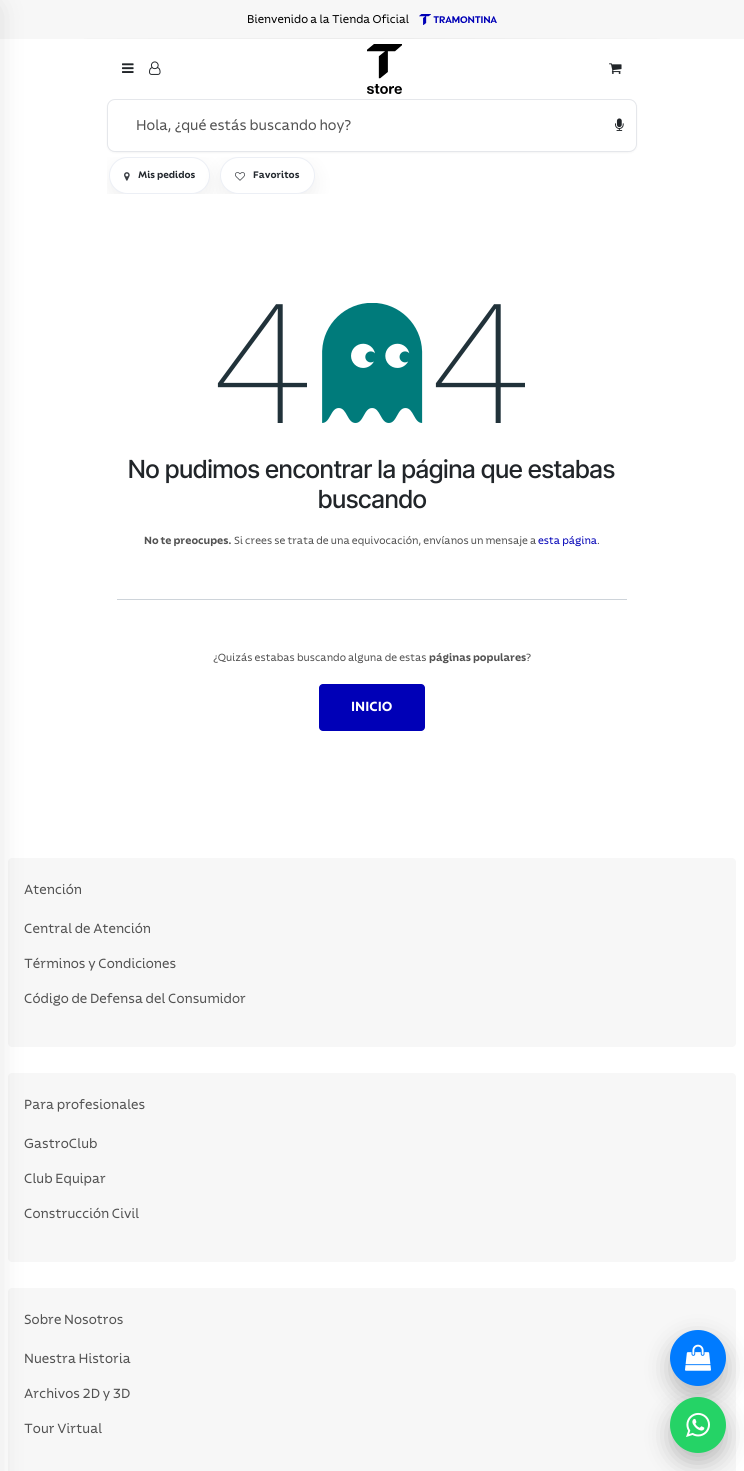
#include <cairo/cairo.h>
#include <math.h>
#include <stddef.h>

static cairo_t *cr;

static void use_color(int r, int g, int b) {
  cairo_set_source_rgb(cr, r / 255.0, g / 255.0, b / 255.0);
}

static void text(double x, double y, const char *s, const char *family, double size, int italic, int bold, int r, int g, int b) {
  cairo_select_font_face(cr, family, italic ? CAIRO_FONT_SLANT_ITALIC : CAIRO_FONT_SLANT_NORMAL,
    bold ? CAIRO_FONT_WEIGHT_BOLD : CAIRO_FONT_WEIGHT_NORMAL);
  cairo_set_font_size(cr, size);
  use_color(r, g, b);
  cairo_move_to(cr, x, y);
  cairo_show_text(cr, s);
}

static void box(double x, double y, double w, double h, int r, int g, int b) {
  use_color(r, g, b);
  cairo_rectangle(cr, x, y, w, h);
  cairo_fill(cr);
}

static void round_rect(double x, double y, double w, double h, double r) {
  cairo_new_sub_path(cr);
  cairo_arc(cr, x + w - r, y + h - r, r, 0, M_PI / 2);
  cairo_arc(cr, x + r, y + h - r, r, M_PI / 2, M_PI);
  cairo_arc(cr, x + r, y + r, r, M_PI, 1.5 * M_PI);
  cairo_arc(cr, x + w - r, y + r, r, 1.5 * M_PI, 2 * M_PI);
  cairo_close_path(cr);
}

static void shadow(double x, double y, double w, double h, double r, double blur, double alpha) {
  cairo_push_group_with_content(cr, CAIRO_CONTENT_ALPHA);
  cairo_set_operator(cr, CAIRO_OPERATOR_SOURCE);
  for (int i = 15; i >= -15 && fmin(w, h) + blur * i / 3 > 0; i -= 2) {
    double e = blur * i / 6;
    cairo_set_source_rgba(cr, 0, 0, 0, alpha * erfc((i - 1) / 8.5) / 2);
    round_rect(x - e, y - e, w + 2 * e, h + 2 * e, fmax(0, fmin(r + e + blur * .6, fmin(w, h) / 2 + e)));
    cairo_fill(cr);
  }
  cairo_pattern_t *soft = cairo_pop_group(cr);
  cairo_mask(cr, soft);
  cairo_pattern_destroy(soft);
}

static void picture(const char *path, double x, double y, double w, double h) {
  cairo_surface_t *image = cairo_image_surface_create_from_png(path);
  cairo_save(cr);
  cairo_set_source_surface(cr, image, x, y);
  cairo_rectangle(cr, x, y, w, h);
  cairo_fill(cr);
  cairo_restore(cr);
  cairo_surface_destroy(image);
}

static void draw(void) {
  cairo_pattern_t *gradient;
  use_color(255, 255, 255);
  cairo_paint(cr);
  box(0, 0, 744, 39, 247, 247, 247);
  picture("img_01.png", 419, 14, 78, 11);
  gradient = cairo_pattern_create_linear(8, 39, 736, 38);
  cairo_pattern_add_color_stop_rgba(gradient, 0, 0.969, 0.969, 0.969, 1);
  cairo_pattern_add_color_stop_rgba(gradient, 0.5, 0.922, 0.922, 0.922, 1);
  cairo_pattern_add_color_stop_rgba(gradient, 1, 0.969, 0.969, 0.969, 1);
  cairo_set_source(cr, gradient);
  cairo_pattern_destroy(gradient);
  cairo_rectangle(cr, 84, 38, 576, 1);
  cairo_fill(cr);
  use_color(247, 247, 247);
  round_rect(8, 858, 728, 189, 4);
  cairo_fill(cr);
  round_rect(8, 1073, 728, 189, 4);
  cairo_fill(cr);
  round_rect(8, 1288, 728, 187, 4);
  cairo_fill(cr);
  use_color(0, 0, 0);
  shadow(-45, 10, 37, 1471, 0, 15, 0.18);
  picture("img_02.png", 122, 63, 12, 10);
  picture("img_03.png", 149, 61, 12, 14);
  picture("img_04.png", 367, 44, 35, 50);
  picture("img_05.png", 609, 63, 13, 11);
  shadow(107, 100, 530, 53, 8, 1, 0.04);
  cairo_save(cr);
  cairo_rectangle(cr, 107, 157, 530, 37);
  cairo_clip(cr);
  shadow(109, 165, 101, 37, 18.5, 10, 0.06);
  cairo_restore(cr);
  use_color(255, 255, 255);
  round_rect(109.5, 157.5, 100, 36, 18);
  cairo_fill_preserve(cr);
  use_color(236, 239, 245);
  cairo_set_line_width(cr, 1);
  cairo_stroke(cr);
  cairo_save(cr);
  cairo_rectangle(cr, 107, 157, 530, 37);
  cairo_clip(cr);
  use_color(0, 0, 0);
  shadow(220, 165, 95, 37, 18.5, 10, 0.06);
  cairo_restore(cr);
  use_color(255, 255, 255);
  round_rect(107.5, 99.5, 529, 52, 7.5);
  cairo_fill_preserve(cr);
  use_color(229, 231, 235);
  cairo_stroke(cr);
  picture("img_06.png", 615, 118, 9, 13);
  picture("img_07.png", 124, 172, 6, 9);
  use_color(255, 255, 255);
  round_rect(220.5, 157.5, 94, 36, 18);
  cairo_fill_preserve(cr);
  use_color(236, 239, 245);
  cairo_stroke(cr);
  picture("img_08.png", 235, 172, 10, 9);
  picture("img_09.png", 217, 303, 308, 120);
  box(117, 599, 510, 1, 206, 212, 218);
  use_color(0, 0, 183);
  round_rect(319, 684, 106, 47, 4);
  cairo_fill(cr);
  use_color(0, 0, 0);
  shadow(670, 1340, 56, 56, 28, 12, 0.25);
  use_color(0, 123, 255);
  cairo_arc(cr, 698, 1358, 28, 0, 2 * M_PI);
  cairo_fill(cr);
  picture("img_10.png", 685, 1344, 26, 27);
  use_color(0, 0, 0);
  shadow(670, 1407, 56, 56, 28, 12, 0.25);
  use_color(37, 211, 102);
  cairo_arc(cr, 698, 1425, 28, 0, 2 * M_PI);
  cairo_fill(cr);
  picture("img_11.png", 686, 1412, 24, 25);
  text(247, 23, "Bienvenido a la Tienda Oficial", "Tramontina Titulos", 12, 0, 0, 0, 0, 0);
  text(136, 130, "Hola, ¿qué estás buscando hoy?", "Tramontina Titulos", 15, 0, 0, 82, 82, 82);
  text(138, 178, "Mis pedidos", "Tramontina Titulos", 10, 0, 1, 36, 41, 47);
  text(253, 178, "Favoritos", "Tramontina Titulos", 10, 0, 1, 36, 41, 47);
  text(128, 478, "No pudimos encontrar la página que estabas", "Inter Tight Medium", 24.9, 0, 0, 33, 37, 41);
  text(318, 508, "buscando", "Inter Tight Medium", 24.9, 0, 0, 33, 37, 41);
  text(144, 544, "No te preocupes.", "Tramontina Titulos", 11, 0, 1, 82, 82, 82);
  text(234, 544, "Si crees se trata de una equivocación, envíanos un mensaje a", "Tramontina Titulos", 11, 0, 0, 82, 82, 82);
  text(538, 544, "esta página", "Tramontina Titulos", 11, 0, 0, 0, 0, 183);
  text(597, 544, ".", "Tramontina Titulos", 11, 0, 0, 82, 82, 82);
  text(213, 661, "¿Quizás estabas buscando alguna de estas", "Tramontina Titulos", 11, 0, 0, 82, 82, 82);
  text(429, 661, "páginas populares", "Tramontina Titulos", 11, 0, 1, 82, 82, 82);
  text(526, 661, "?", "Tramontina Titulos", 11, 0, 0, 82, 82, 82);
  text(351, 711, "INICIO", "Tramontina Titulos", 14, 0, 1, 255, 255, 255);
  text(24, 894, "Atención", "Tramontina Titulos", 14, 0, 0, 82, 82, 82);
  text(24, 933, "Central de Atención", "Tramontina Titulos", 14, 0, 0, 82, 82, 82);
  text(24, 968, "Términos y Condiciones", "Tramontina Titulos", 14, 0, 0, 82, 82, 82);
  text(24, 1003, "Código de Defensa del Consumidor", "Tramontina Titulos", 14, 0, 0, 82, 82, 82);
  text(24, 1109, "Para profesionales", "Tramontina Titulos", 14, 0, 0, 82, 82, 82);
  text(24, 1148, "GastroClub", "Tramontina Titulos", 14, 0, 0, 82, 82, 82);
  text(24, 1183, "Club Equipar", "Tramontina Titulos", 14, 0, 0, 82, 82, 82);
  text(24, 1218, "Construcción Civil", "Tramontina Titulos", 14, 0, 0, 82, 82, 82);
  text(24, 1324, "Sobre Nosotros", "Tramontina Titulos", 14, 0, 0, 82, 82, 82);
  text(24, 1363, "Nuestra Historia", "Tramontina Titulos", 14, 0, 0, 82, 82, 82);
  text(24, 1398, "Archivos 2D y 3D", "Tramontina Titulos", 14, 0, 0, 82, 82, 82);
  text(24, 1433, "Tour Virtual", "Tramontina Titulos", 14, 0, 0, 82, 82, 82);
}

int main(void) {
  cairo_surface_t *surface = cairo_image_surface_create(CAIRO_FORMAT_RGB24, 744, 1471);
  cr = cairo_create(surface);
  cairo_font_options_t *options = cairo_font_options_create();
  cairo_font_options_set_hint_metrics(options, CAIRO_HINT_METRICS_OFF);
  cairo_font_options_set_hint_style(options, CAIRO_HINT_STYLE_NONE);
  cairo_set_font_options(cr, options);
  cairo_set_miter_limit(cr, 4);
  draw();
  cairo_surface_write_to_png(surface, "out.png");
  cairo_font_options_destroy(options);
  cairo_destroy(cr);
  cairo_surface_destroy(surface);
  return 0;
}
